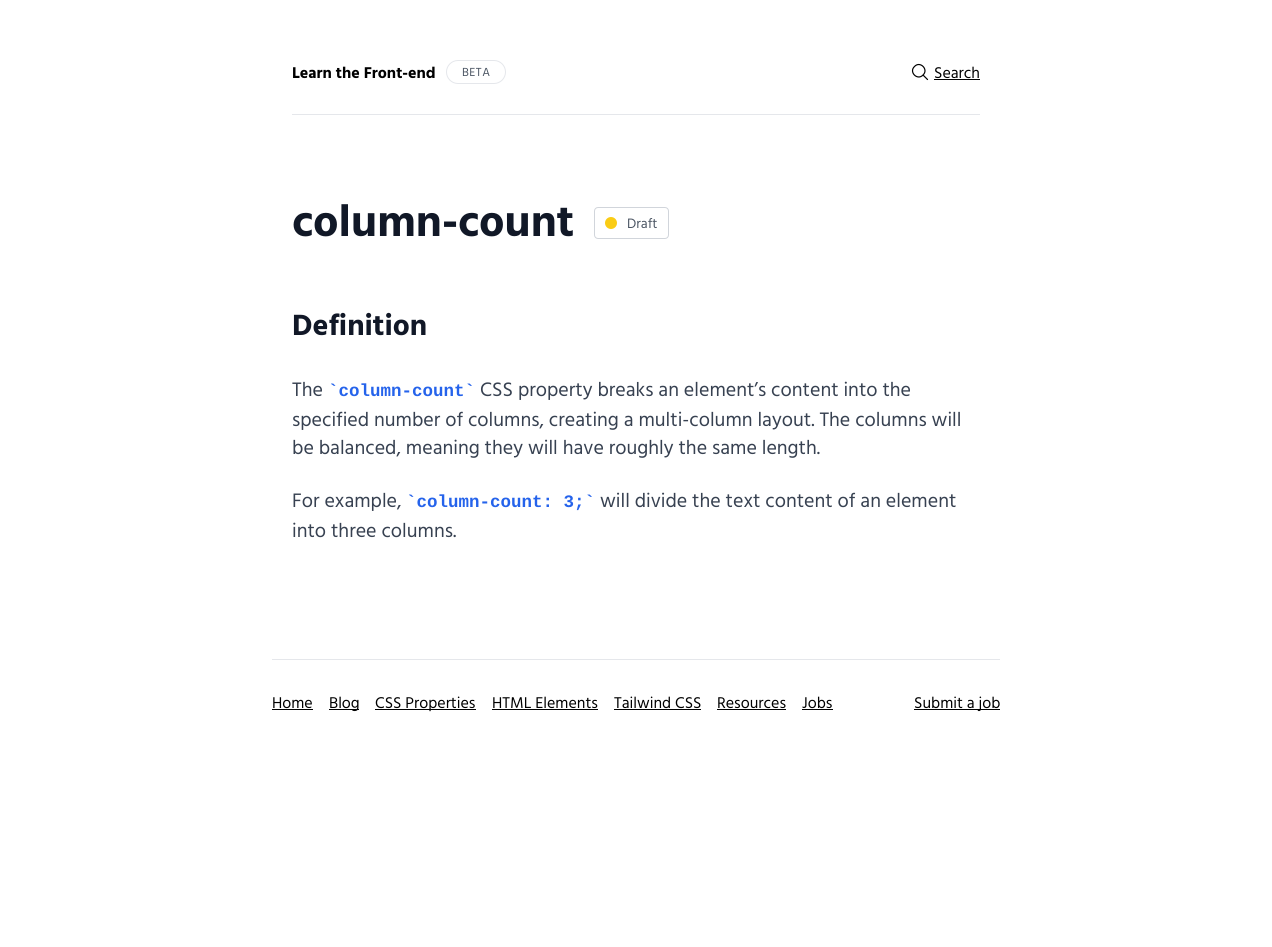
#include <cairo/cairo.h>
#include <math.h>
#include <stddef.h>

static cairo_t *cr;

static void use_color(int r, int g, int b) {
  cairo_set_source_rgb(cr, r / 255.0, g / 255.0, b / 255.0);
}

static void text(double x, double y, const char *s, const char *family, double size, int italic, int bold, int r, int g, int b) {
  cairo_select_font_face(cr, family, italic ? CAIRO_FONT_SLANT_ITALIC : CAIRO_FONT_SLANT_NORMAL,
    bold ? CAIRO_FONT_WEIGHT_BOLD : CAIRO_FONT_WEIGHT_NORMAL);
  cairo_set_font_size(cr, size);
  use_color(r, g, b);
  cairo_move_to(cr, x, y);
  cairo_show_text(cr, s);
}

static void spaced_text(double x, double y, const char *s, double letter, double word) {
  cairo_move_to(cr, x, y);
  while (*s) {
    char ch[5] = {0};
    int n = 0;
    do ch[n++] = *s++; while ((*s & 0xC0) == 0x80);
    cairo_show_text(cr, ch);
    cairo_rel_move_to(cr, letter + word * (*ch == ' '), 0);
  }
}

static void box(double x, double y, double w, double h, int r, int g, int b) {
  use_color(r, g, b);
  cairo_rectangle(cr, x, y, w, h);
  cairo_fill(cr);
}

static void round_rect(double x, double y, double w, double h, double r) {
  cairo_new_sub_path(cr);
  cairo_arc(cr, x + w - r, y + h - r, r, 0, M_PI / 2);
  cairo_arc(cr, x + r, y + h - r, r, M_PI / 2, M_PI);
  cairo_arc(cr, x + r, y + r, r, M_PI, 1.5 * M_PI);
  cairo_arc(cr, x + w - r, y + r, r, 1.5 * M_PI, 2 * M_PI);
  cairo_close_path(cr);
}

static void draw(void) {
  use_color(255, 255, 255);
  cairo_paint(cr);
  box(292, 114, 688, 1, 229, 231, 235);
  round_rect(446.5, 60.5, 59, 23, 11.5);
  cairo_set_line_width(cr, 1);
  cairo_stroke(cr);
  cairo_new_path(cr);
  cairo_move_to(cr, 927.5, 79.5);
  cairo_line_to(cr, 923, 75);
  cairo_move_to(cr, 923, 75);
  cairo_curve_to(cr, 929, 69.5, 920, 60.5, 914.5, 66.5);
  cairo_curve_to(cr, 908.5, 72, 917.5, 81, 923, 75);
  cairo_close_path(cr);
  use_color(0, 0, 0);
  cairo_set_line_width(cr, 1.2);
  cairo_set_line_cap(cr, CAIRO_LINE_CAP_ROUND);
  cairo_set_line_join(cr, CAIRO_LINE_JOIN_ROUND);
  cairo_stroke(cr);
  box(934, 79, 46, 1, 0, 0, 0);
  round_rect(594.5, 207.5, 74, 31, 3.5);
  use_color(209, 213, 219);
  cairo_set_line_width(cr, 1);
  cairo_set_line_cap(cr, CAIRO_LINE_CAP_BUTT);
  cairo_set_line_join(cr, CAIRO_LINE_JOIN_MITER);
  cairo_stroke(cr);
  use_color(250, 204, 21);
  cairo_arc(cr, 611, 223, 6, 0, 2 * M_PI);
  cairo_fill(cr);
  box(272, 659, 728, 1, 229, 231, 235);
  box(272, 709, 41, 1, 0, 0, 0);
  box(329, 709, 30, 1, 0, 0, 0);
  box(375, 709, 101, 1, 0, 0, 0);
  box(492, 709, 106, 1, 0, 0, 0);
  box(614, 709, 87, 1, 0, 0, 0);
  box(717, 709, 69, 1, 0, 0, 0);
  box(802, 709, 31, 1, 0, 0, 0);
  box(914, 709, 86, 1, 0, 0, 0);
  text(292, 78, "Learn the Front-end", "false", 16, 0, 1, 0, 0, 0);
  cairo_select_font_face(cr, "false", CAIRO_FONT_SLANT_NORMAL, CAIRO_FONT_WEIGHT_NORMAL);
  cairo_set_font_size(cr, 12);
  use_color(75, 85, 99);
  spaced_text(462, 76, "BETA", 0.5, 0);
  text(934, 78, "Search", "false", 16, 0, 0, 0, 0, 0);
  text(292, 236, "column-count", "false", 45, 0, 1, 17, 24, 39);
  text(627, 228, "Draft", "false", 14, 0, 0, 75, 85, 99);
  text(292, 335, "Definition", "false", 30, 0, 1, 17, 24, 39);
  text(292, 396, "The", "false", 20, 0, 0, 55, 65, 81);
  text(328, 396, "`column-count`", "Liberation Mono", 17.5, 0, 1, 37, 99, 235);
  text(480, 396, "CSS property breaks an element’s content into the", "false", 20, 0, 0, 55, 65, 81);
  text(292, 426, "specified number of columns, creating a multi-column layout. The columns will", "false", 20, 0, 0, 55, 65, 81);
  text(292, 454, "be balanced, meaning they will have roughly the same length.", "false", 20, 0, 0, 55, 65, 81);
  text(292, 507, "For example,", "false", 20, 0, 0, 55, 65, 81);
  text(406, 507, "`column-count: 3;`", "Liberation Mono", 17.5, 0, 1, 37, 99, 235);
  text(600, 507, "will divide the text content of an element", "false", 20, 0, 0, 55, 65, 81);
  text(292, 537, "into three columns.", "false", 20, 0, 0, 55, 65, 81);
  text(272, 708, "Home", "false", 16, 0, 0, 0, 0, 0);
  text(329, 708, "Blog", "false", 16, 0, 0, 0, 0, 0);
  text(375, 708, "CSS Properties", "false", 16, 0, 0, 0, 0, 0);
  text(492, 708, "HTML Elements", "false", 16, 0, 0, 0, 0, 0);
  text(614, 708, "Tailwind CSS", "false", 16, 0, 0, 0, 0, 0);
  text(717, 708, "Resources", "false", 16, 0, 0, 0, 0, 0);
  text(802, 708, "Jobs", "false", 16, 0, 0, 0, 0, 0);
  text(914, 708, "Submit a job", "false", 16, 0, 0, 0, 0, 0);
}

int main(void) {
  cairo_surface_t *surface = cairo_image_surface_create(CAIRO_FORMAT_RGB24, 1272, 947);
  cr = cairo_create(surface);
  cairo_font_options_t *options = cairo_font_options_create();
  cairo_font_options_set_hint_metrics(options, CAIRO_HINT_METRICS_OFF);
  cairo_font_options_set_hint_style(options, CAIRO_HINT_STYLE_NONE);
  cairo_set_font_options(cr, options);
  cairo_set_miter_limit(cr, 4);
  draw();
  cairo_surface_write_to_png(surface, "out.png");
  cairo_font_options_destroy(options);
  cairo_destroy(cr);
  cairo_surface_destroy(surface);
  return 0;
}
